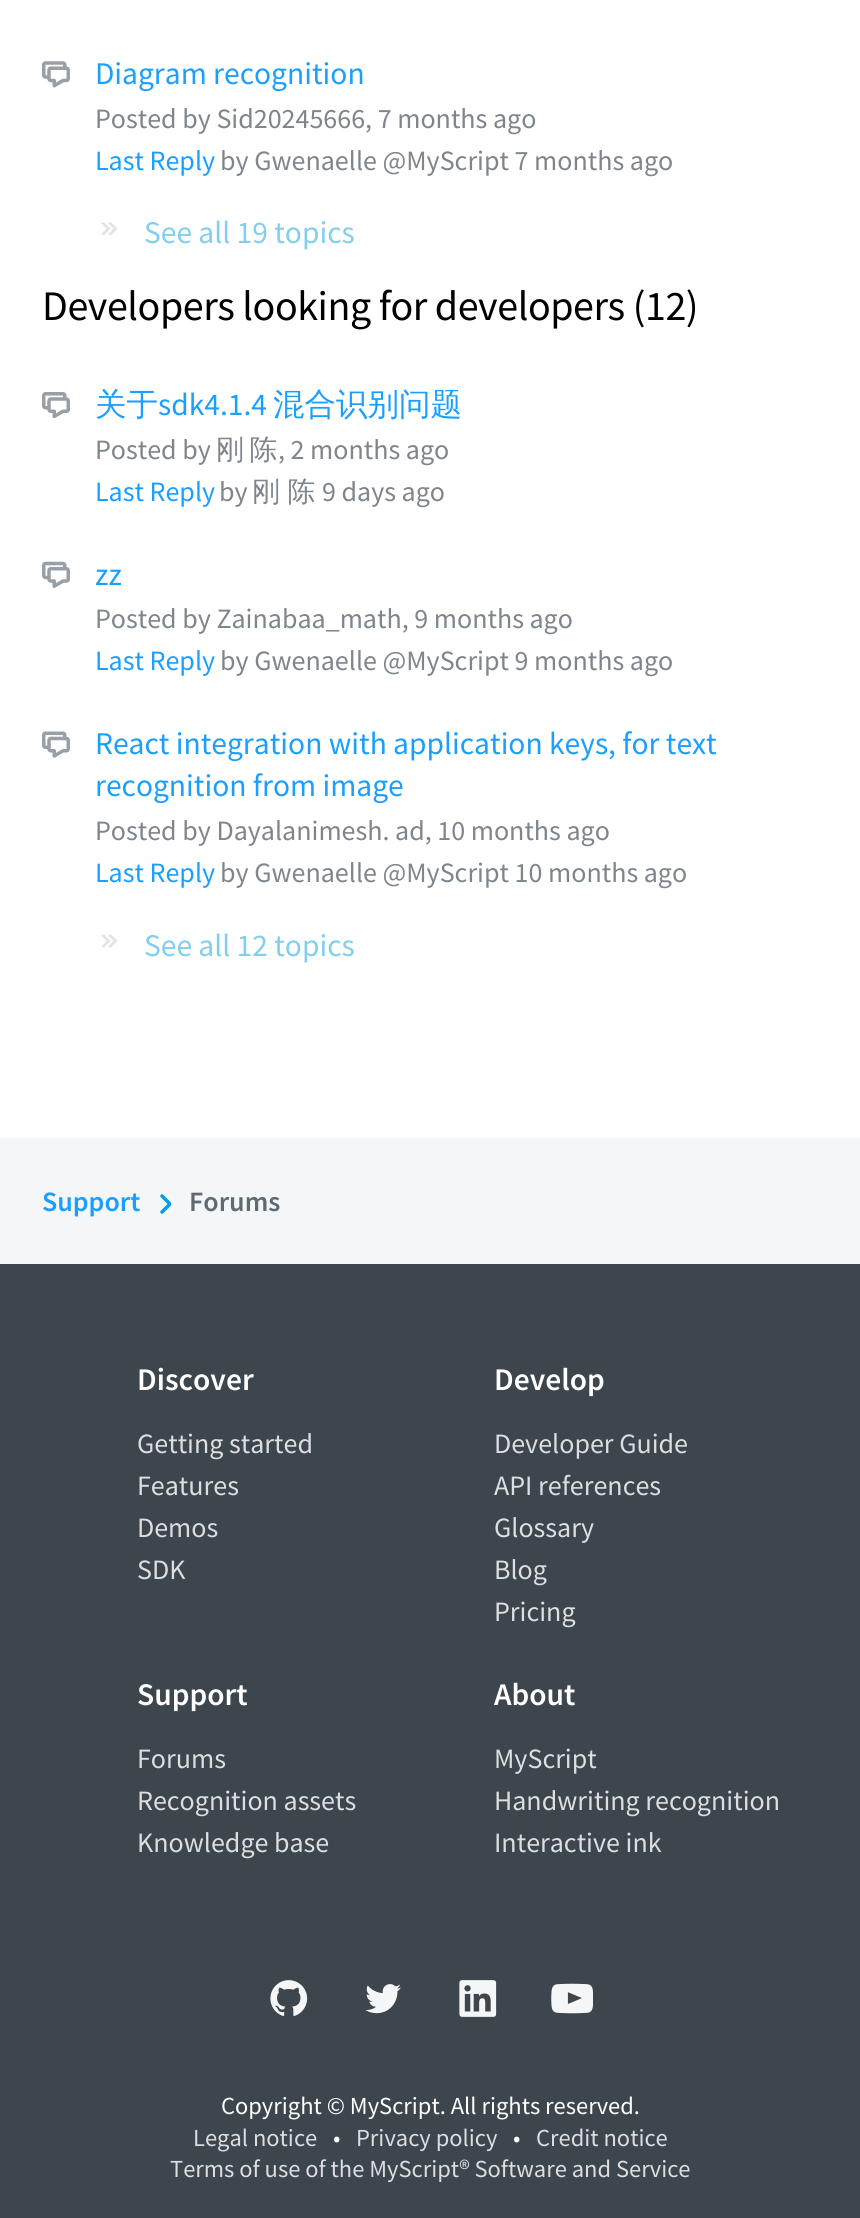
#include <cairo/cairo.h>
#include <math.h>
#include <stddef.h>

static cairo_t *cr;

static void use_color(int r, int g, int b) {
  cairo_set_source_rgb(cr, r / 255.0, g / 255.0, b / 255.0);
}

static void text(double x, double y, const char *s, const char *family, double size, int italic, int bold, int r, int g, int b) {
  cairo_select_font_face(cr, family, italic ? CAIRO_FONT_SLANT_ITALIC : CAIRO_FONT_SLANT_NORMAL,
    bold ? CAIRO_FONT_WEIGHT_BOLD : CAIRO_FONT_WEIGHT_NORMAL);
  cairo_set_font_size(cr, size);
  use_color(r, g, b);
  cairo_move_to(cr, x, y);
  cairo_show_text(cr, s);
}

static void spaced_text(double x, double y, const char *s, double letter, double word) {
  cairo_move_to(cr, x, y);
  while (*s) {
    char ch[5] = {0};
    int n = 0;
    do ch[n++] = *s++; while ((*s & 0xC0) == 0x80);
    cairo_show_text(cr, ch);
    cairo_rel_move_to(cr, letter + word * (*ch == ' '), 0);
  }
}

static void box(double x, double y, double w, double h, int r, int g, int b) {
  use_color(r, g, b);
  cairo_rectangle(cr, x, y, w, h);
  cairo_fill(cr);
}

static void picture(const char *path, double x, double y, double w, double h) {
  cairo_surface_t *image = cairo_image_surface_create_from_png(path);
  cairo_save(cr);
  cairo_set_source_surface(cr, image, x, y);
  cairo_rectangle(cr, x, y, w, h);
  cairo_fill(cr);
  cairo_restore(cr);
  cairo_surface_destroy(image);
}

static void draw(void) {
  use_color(255, 255, 255);
  cairo_paint(cr);
  picture("img_01.png", 42, 61, 28, 27);
  picture("img_02.png", 101, 222, 17, 14);
  picture("img_03.png", 42, 392, 28, 26);
  picture("img_04.png", 42, 561, 28, 27);
  picture("img_05.png", 42, 731, 28, 27);
  picture("img_06.png", 101, 934, 17, 14);
  box(0, 1138, 860, 126, 245, 246, 247);
  cairo_new_path(cr);
  cairo_move_to(cr, 162, 1212);
  cairo_line_to(cr, 169.5, 1204.5);
  cairo_line_to(cr, 169.5, 1203.5);
  cairo_line_to(cr, 162, 1196);
  use_color(0, 159, 227);
  cairo_set_line_width(cr, 3.5);
  cairo_set_line_cap(cr, CAIRO_LINE_CAP_ROUND);
  cairo_set_line_join(cr, CAIRO_LINE_JOIN_ROUND);
  cairo_stroke(cr);
  box(0, 1264, 860, 954, 61, 69, 77);
  picture("img_07.png", 270, 1980, 38, 36);
  picture("img_08.png", 365, 1984, 36, 30);
  picture("img_09.png", 459, 1980, 38, 37);
  picture("img_10.png", 551, 1983, 42, 31);
  text(95, 84, "Diagram recognition", "Source Sans Pro", 31.5, 0, 0, 26, 159, 255);
  text(95, 128, "Posted by Sid20245666, 7 months ago", "Source Sans Pro", 28, 0, 0, 126, 133, 140);
  text(95, 170, "Last Reply", "Source Sans Pro", 28, 0, 0, 26, 159, 255);
  text(220, 170, "by Gwenaelle @MyScript 7 months ago", "Source Sans Pro", 28, 0, 0, 126, 133, 140);
  text(144, 243, "See all 19 topics", "Source Sans Pro", 31.5, 0, 0, 130, 206, 237);
  cairo_set_font_size(cr, 42);
  use_color(0, 0, 0);
  spaced_text(42, 320, "Developers looking for developers (12)", -0.45, 0);
  text(95, 415, "关于", "WenQuanYi Zen Hei Medium", 31.5, 0, 0, 26, 159, 255);
  text(158, 415, "sdk4.1.4", "Source Sans Pro", 31.5, 0, 0, 26, 159, 255);
  text(273, 415, "混合识别问题", "WenQuanYi Zen Hei Medium", 31.5, 0, 0, 26, 159, 255);
  text(95, 459, "Posted by", "Source Sans Pro", 28, 0, 0, 126, 133, 140);
  cairo_select_font_face(cr, "WenQuanYi Zen Hei Medium", CAIRO_FONT_SLANT_NORMAL, CAIRO_FONT_WEIGHT_NORMAL);
  spaced_text(216, 459, "刚 陈", 0, -3);
  text(278, 459, ", 2 months ago", "Source Sans Pro", 28, 0, 0, 126, 133, 140);
  text(95, 501, "Last Reply", "Source Sans Pro", 28, 0, 0, 26, 159, 255);
  text(219, 501, "by", "Source Sans Pro", 28, 0, 0, 126, 133, 140);
  cairo_select_font_face(cr, "WenQuanYi Zen Hei Medium", CAIRO_FONT_SLANT_NORMAL, CAIRO_FONT_WEIGHT_NORMAL);
  spaced_text(252, 501, "刚 陈", 0, -1);
  text(322, 501, "9 days ago", "Source Sans Pro", 28, 0, 0, 126, 133, 140);
  text(95, 585, "zz", "Source Sans Pro", 31.5, 0, 0, 26, 159, 255);
  text(95, 628, "Posted by Zainabaa_math, 9 months ago", "Source Sans Pro", 28, 0, 0, 126, 133, 140);
  text(95, 670, "Last Reply", "Source Sans Pro", 28, 0, 0, 26, 159, 255);
  text(220, 670, "by Gwenaelle @MyScript 9 months ago", "Source Sans Pro", 28, 0, 0, 126, 133, 140);
  text(95, 754, "React integration with application keys, for text", "Source Sans Pro", 31.5, 0, 0, 26, 159, 255);
  text(95, 796, "recognition from image", "Source Sans Pro", 31.5, 0, 0, 26, 159, 255);
  text(95, 840, "Posted by Dayalanimesh. ad, 10 months ago", "Source Sans Pro", 28, 0, 0, 126, 133, 140);
  text(95, 882, "Last Reply", "Source Sans Pro", 28, 0, 0, 26, 159, 255);
  text(220, 882, "by Gwenaelle @MyScript 10 months ago", "Source Sans Pro", 28, 0, 0, 126, 133, 140);
  text(144, 956, "See all 12 topics", "Source Sans Pro", 31.5, 0, 0, 130, 206, 237);
  text(42, 1211, "Support", "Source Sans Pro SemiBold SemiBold", 28, 0, 0, 26, 159, 255);
  text(189, 1211, "Forums", "Source Sans Pro SemiBold SemiBold", 28, 0, 0, 96, 106, 115);
  text(137, 1390, "Discover", "Source Sans Pro SemiBold SemiBold", 31.5, 0, 0, 255, 255, 255);
  text(137, 1453, "Getting started", "Source Sans Pro", 28, 0, 0, 220, 222, 224);
  text(137, 1495, "Features", "Source Sans Pro", 28, 0, 0, 220, 222, 224);
  text(137, 1537, "Demos", "Source Sans Pro", 28, 0, 0, 220, 222, 224);
  text(137, 1579, "SDK", "Source Sans Pro", 28, 0, 0, 220, 222, 224);
  text(494, 1390, "Develop", "Source Sans Pro SemiBold SemiBold", 31.5, 0, 0, 255, 255, 255);
  text(494, 1453, "Developer Guide", "Source Sans Pro", 28, 0, 0, 220, 222, 224);
  text(494, 1495, "API references", "Source Sans Pro", 28, 0, 0, 220, 222, 224);
  text(494, 1537, "Glossary", "Source Sans Pro", 28, 0, 0, 220, 222, 224);
  text(494, 1579, "Blog", "Source Sans Pro", 28, 0, 0, 220, 222, 224);
  text(494, 1621, "Pricing", "Source Sans Pro", 28, 0, 0, 220, 222, 224);
  text(137, 1705, "Support", "Source Sans Pro SemiBold SemiBold", 31.5, 0, 0, 255, 255, 255);
  text(137, 1768, "Forums", "Source Sans Pro", 28, 0, 0, 220, 222, 224);
  text(137, 1810, "Recognition assets", "Source Sans Pro", 28, 0, 0, 220, 222, 224);
  text(137, 1852, "Knowledge base", "Source Sans Pro", 28, 0, 0, 220, 222, 224);
  text(494, 1705, "About", "Source Sans Pro SemiBold SemiBold", 31.5, 0, 0, 255, 255, 255);
  text(494, 1768, "MyScript", "Source Sans Pro", 28, 0, 0, 220, 222, 224);
  text(494, 1810, "Handwriting recognition", "Source Sans Pro", 28, 0, 0, 220, 222, 224);
  text(494, 1852, "Interactive ink", "Source Sans Pro", 28, 0, 0, 220, 222, 224);
  text(221, 2114, "Copyright © MyScript. All rights reserved.", "Source Sans Pro", 24.5, 0, 0, 255, 255, 255);
  text(193, 2146, "Legal notice", "Source Sans Pro", 24.5, 0, 0, 220, 222, 224);
  text(333, 2146, "•", "Source Sans Pro", 24.5, 0, 0, 255, 255, 255);
  text(356, 2146, "Privacy policy", "Source Sans Pro", 24.5, 0, 0, 220, 222, 224);
  text(513, 2146, "•", "Source Sans Pro", 24.5, 0, 0, 255, 255, 255);
  text(536, 2146, "Credit notice", "Source Sans Pro", 24.5, 0, 0, 220, 222, 224);
  text(170, 2177, "Terms of use of the MyScript® Software and Service", "Source Sans Pro", 24.5, 0, 0, 220, 222, 224);
}

int main(void) {
  cairo_surface_t *surface = cairo_image_surface_create(CAIRO_FORMAT_RGB24, 860, 2218);
  cr = cairo_create(surface);
  cairo_font_options_t *options = cairo_font_options_create();
  cairo_font_options_set_hint_metrics(options, CAIRO_HINT_METRICS_OFF);
  cairo_font_options_set_hint_style(options, CAIRO_HINT_STYLE_NONE);
  cairo_set_font_options(cr, options);
  cairo_set_miter_limit(cr, 4);
  draw();
  cairo_surface_write_to_png(surface, "out.png");
  cairo_font_options_destroy(options);
  cairo_destroy(cr);
  cairo_surface_destroy(surface);
  return 0;
}
